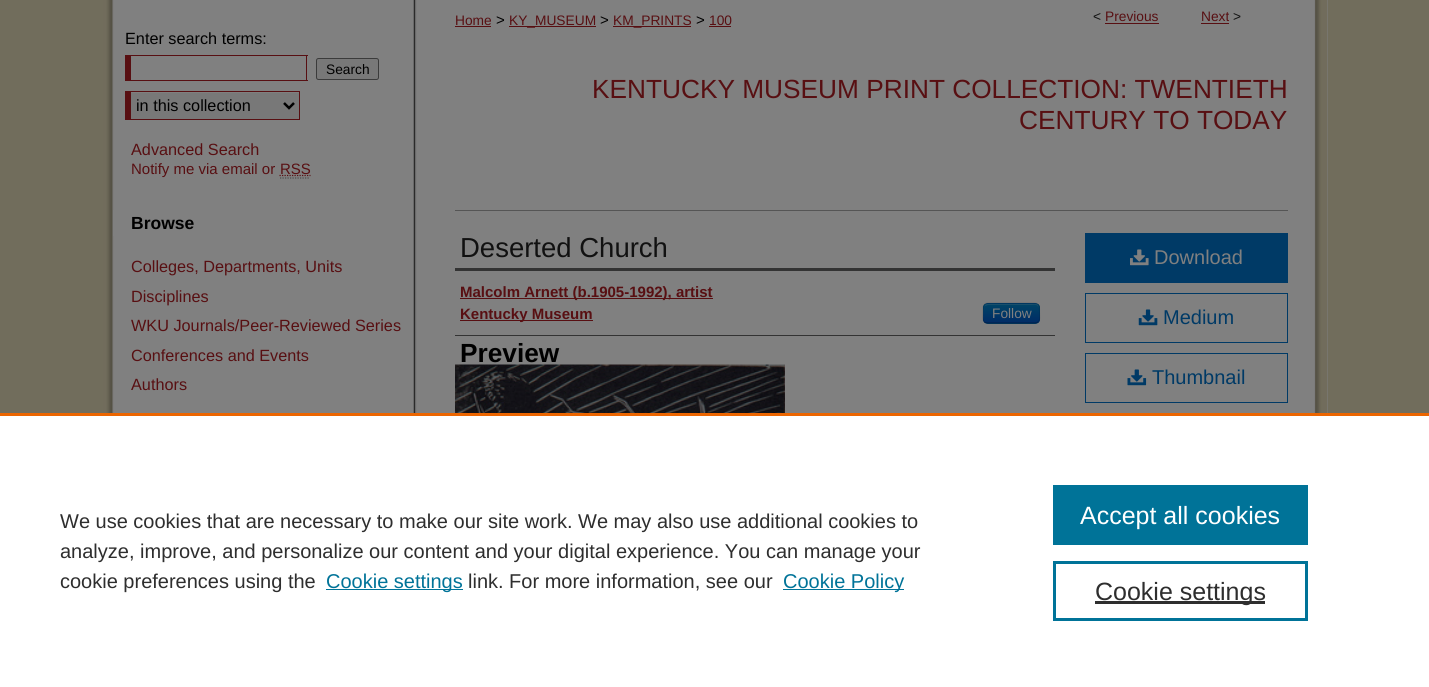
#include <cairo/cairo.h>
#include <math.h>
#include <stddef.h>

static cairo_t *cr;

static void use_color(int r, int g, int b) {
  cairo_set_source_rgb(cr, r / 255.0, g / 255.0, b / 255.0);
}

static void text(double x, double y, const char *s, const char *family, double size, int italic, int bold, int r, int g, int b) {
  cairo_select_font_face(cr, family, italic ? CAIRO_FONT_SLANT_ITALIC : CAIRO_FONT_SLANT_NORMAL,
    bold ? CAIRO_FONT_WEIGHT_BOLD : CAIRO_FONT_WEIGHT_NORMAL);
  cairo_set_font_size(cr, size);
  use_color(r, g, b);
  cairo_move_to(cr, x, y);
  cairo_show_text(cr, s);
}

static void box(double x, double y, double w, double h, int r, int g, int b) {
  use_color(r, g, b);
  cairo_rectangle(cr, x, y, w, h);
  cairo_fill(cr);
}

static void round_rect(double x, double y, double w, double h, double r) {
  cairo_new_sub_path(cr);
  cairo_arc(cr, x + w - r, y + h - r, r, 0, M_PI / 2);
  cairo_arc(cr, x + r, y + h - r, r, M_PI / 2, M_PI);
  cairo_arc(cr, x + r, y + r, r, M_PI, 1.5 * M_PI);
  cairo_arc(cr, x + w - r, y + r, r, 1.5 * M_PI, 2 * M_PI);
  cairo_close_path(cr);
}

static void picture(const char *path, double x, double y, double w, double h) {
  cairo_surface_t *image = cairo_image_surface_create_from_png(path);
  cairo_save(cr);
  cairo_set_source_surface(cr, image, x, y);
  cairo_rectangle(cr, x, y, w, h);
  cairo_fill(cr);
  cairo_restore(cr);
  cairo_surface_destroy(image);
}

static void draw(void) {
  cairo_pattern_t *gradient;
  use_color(113, 109, 92);
  cairo_paint(cr);
  box(1327, 0, 1, 413, 128, 128, 128);
  picture("img_01.png", 103, 0, 1225, 413);
  box(125, 55, 183, 1, 88, 15, 18);
  box(306, 55, 1, 26, 88, 15, 18);
  box(125, 80, 183, 1, 88, 15, 18);
  box(125, 55, 6, 26, 88, 15, 18);
  use_color(120, 120, 120);
  round_rect(316.5, 58.5, 62, 21, 2);
  cairo_fill_preserve(cr);
  use_color(59, 59, 59);
  cairo_set_line_width(cr, 1);
  cairo_stroke(cr);
  box(131, 93, 168, 26, 120, 120, 120);
  box(125, 91, 175, 1, 88, 15, 18);
  box(299, 91, 1, 29, 88, 15, 18);
  box(125, 119, 175, 1, 88, 15, 18);
  box(125, 91, 6, 29, 88, 15, 18);
  cairo_new_path(cr);
  cairo_move_to(cr, 284, 103);
  cairo_line_to(cr, 289, 108);
  cairo_line_to(cr, 294, 103);
  use_color(0, 0, 0);
  cairo_set_line_width(cr, 2.5);
  cairo_stroke(cr);
  cairo_new_path(cr);
  cairo_move_to(cr, 280, 178);
  cairo_line_to(cr, 310, 178);
  use_color(77, 77, 77);
  cairo_set_line_width(cr, 1.2);
  cairo_set_dash(cr, (double[]){1.25, 1.25}, 2, 0);
  cairo_stroke(cr);
  cairo_new_path(cr);
  cairo_move_to(cr, 279.5, 175.5);
  cairo_line_to(cr, 310.5, 175.5);
  use_color(88, 15, 18);
  cairo_stroke(cr);
  box(113, 210, 1, 26, 128, 128, 128);
  box(455, 26, 36, 1, 88, 15, 18);
  box(509, 26, 87, 1, 88, 15, 18);
  box(613, 26, 78, 1, 88, 15, 18);
  box(709, 26, 22, 1, 88, 15, 18);
  box(1105, 23, 54, 1, 88, 15, 18);
  box(1201, 23, 28, 1, 88, 15, 18);
  box(455, 210, 833, 1, 85, 85, 85);
  box(455, 268, 600, 3, 51, 51, 51);
  box(455, 335, 600, 1, 51, 51, 51);
  box(460, 298, 253, 1, 88, 15, 18);
  box(460, 320, 133, 1, 88, 15, 18);
  use_color(0, 58, 102);
  round_rect(983, 303, 57, 21, 5);
  cairo_fill(cr);
  cairo_save(cr);
  round_rect(983, 303, 57, 21, 5);
  cairo_clip(cr);
  gradient = cairo_pattern_create_linear(1011, 304, 1011, 323);
  cairo_pattern_add_color_stop_rgba(gradient, 0, 0, 0.267, 0.4, 1);
  cairo_pattern_add_color_stop_rgba(gradient, 1, 0, 0.169, 0.4, 1);
  cairo_set_source(cr, gradient);
  cairo_pattern_destroy(gradient);
  cairo_rectangle(cr, 983, 304, 57, 19);
  cairo_fill(cr);
  cairo_restore(cr);
  cairo_set_source_rgba(cr, 0.502, 0.502, 0.502, 0.2);
  cairo_new_path(cr);
  cairo_move_to(cr, 988, 305);
  cairo_line_to(cr, 1032, 305);
  cairo_curve_to(cr, 1039, 304, 1039, 307, 1039, 313);
  cairo_line_to(cr, 1039, 320);
  cairo_line_to(cr, 1039, 312);
  cairo_curve_to(cr, 1039, 302, 1037, 304, 1027, 304);
  cairo_line_to(cr, 996, 304);
  cairo_curve_to(cr, 986, 304, 984, 302, 984, 312);
  cairo_line_to(cr, 984, 321);
  cairo_curve_to(cr, 984, 318, 983, 308, 985, 306);
  cairo_close_path(cr);
  cairo_fill(cr);
  cairo_new_path(cr);
  cairo_move_to(cr, 1038, 322);
  cairo_curve_to(cr, 1037.5, 322.5, 1036, 323, 1035, 323);
  cairo_line_to(cr, 987.5, 323);
  cairo_curve_to(cr, 986.5, 323, 985, 322.5, 984.5, 322);
  cairo_set_source_rgba(cr, 0, 0, 0, 0.25);
  cairo_set_dash(cr, NULL, 0, 0);
  cairo_stroke(cr);
  cairo_new_path(cr);
  cairo_move_to(cr, 984.5, 322);
  cairo_curve_to(cr, 982, 319.5, 983, 316, 983, 313);
  cairo_curve_to(cr, 983, 302, 984, 303, 995.5, 303);
  cairo_line_to(cr, 1027, 303);
  cairo_curve_to(cr, 1038.5, 303, 1039.5, 302, 1039.5, 313);
  cairo_curve_to(cr, 1039.5, 316, 1040.5, 319.5, 1038, 322);
  cairo_set_source_rgba(cr, 0, 0, 0, 0.1);
  cairo_stroke(cr);
  picture("img_02.png", 455, 364, 330, 49);
  box(1085, 233, 203, 50, 0, 58, 102);
  picture("img_03.png", 1130, 249, 19, 17);
  cairo_rectangle(cr, 1085.5, 293.5, 202, 49);
  cairo_set_line_width(cr, 1);
  cairo_stroke(cr);
  picture("img_04.png", 1138, 309, 20, 17);
  cairo_rectangle(cr, 1085.5, 353.5, 202, 49);
  cairo_stroke(cr);
  picture("img_05.png", 1127, 369, 20, 17);
  box(0, 416, 1429, 271, 255, 255, 255);
  box(0, 413, 1429, 3, 235, 101, 0);
  box(326, 589, 137, 1, 0, 115, 152);
  box(783, 589, 121, 1, 0, 115, 152);
  box(1053, 485, 255, 60, 0, 115, 152);
  cairo_rectangle(cr, 1054.5, 562.5, 252, 57);
  cairo_set_line_width(cr, 3);
  cairo_stroke(cr);
  box(1095, 601, 170, 3, 46, 46, 46);
  text(125, 44, "Enter search terms:", "Liberation Sans", 16.25, 0, 0, 0, 0, 0);
  text(326, 74, "Search", "Liberation Sans", 13.75, 0, 0, 0, 0, 0);
  text(136, 111, "in this collection", "Liberation Sans", 16.25, 0, 0, 0, 0, 0);
  text(131, 155, "Advanced Search", "Liberation Sans", 16.25, 0, 0, 88, 15, 18);
  text(131, 174, "Notify me via email or", "Liberation Sans", 15, 0, 0, 88, 15, 18);
  text(280, 174, "RSS", "Liberation Sans", 15, 0, 0, 88, 15, 18);
  text(131, 229, "Browse", "Liberation Sans", 17.5, 0, 1, 0, 0, 0);
  text(131, 272, "Colleges, Departments, Units", "Liberation Sans", 16.25, 0, 0, 88, 15, 18);
  text(131, 302, "Disciplines", "Liberation Sans", 16.25, 0, 0, 88, 15, 18);
  text(131, 331, "WKU Journals/Peer-Reviewed Series", "Liberation Sans", 16.25, 0, 0, 88, 15, 18);
  text(131, 361, "Conferences and Events", "Liberation Sans", 16.25, 0, 0, 88, 15, 18);
  text(131, 390, "Authors", "Liberation Sans", 16.25, 0, 0, 88, 15, 18);
  text(455, 25, "Home", "Liberation Sans", 13.75, 0, 0, 88, 15, 18);
  text(496, 25, ">", "Liberation Sans", 15, 0, 0, 0, 0, 0);
  text(509, 25, "KY_MUSEUM", "Liberation Sans", 13.75, 0, 0, 88, 15, 18);
  text(600, 25, ">", "Liberation Sans", 15, 0, 0, 0, 0, 0);
  text(613, 25, "KM_PRINTS", "Liberation Sans", 13.75, 0, 0, 88, 15, 18);
  text(696, 25, ">", "Liberation Sans", 15, 0, 0, 0, 0, 0);
  text(709, 25, "100", "Liberation Sans", 13.75, 0, 0, 88, 15, 18);
  text(1093, 21, "<", "Liberation Sans", 13.75, 0, 0, 17, 17, 17);
  text(1105, 21, "Previous", "Liberation Sans", 13.75, 0, 0, 88, 15, 18);
  text(1201, 21, "Next", "Liberation Sans", 13.75, 0, 0, 88, 15, 18);
  text(1233, 21, ">", "Liberation Sans", 13.75, 0, 0, 17, 17, 17);
  text(592, 98, "KENTUCKY MUSEUM PRINT COLLECTION: TWENTIETH", "Liberation Sans", 26.25, 0, 0, 88, 15, 18);
  text(1019, 129, "CENTURY TO TODAY", "Liberation Sans", 26.25, 0, 0, 88, 15, 18);
  text(460, 257, "Deserted Church", "Liberation Sans", 27.5, 0, 0, 17, 17, 17);
  text(460, 297, "Malcolm Arnett (b.1905-1992), artist", "Liberation Sans", 15, 0, 1, 88, 15, 18);
  text(460, 319, "Kentucky Museum", "Liberation Sans", 15, 0, 1, 88, 15, 18);
  text(992, 318, "Follow", "Liberation Sans", 13.75, 0, 0, 128, 128, 128);
  text(460, 362, "Preview", "Liberation Sans", 26.25, 0, 1, 0, 0, 0);
  text(1154, 264, "Download", "Liberation Sans", 20, 0, 0, 128, 128, 128);
  text(1163, 324, "Medium", "Liberation Sans", 20, 0, 0, 0, 58, 102);
  text(1152, 384, "Thumbnail", "Liberation Sans", 20, 0, 0, 0, 58, 102);
  text(60, 528, "We use cookies that are necessary to make our site work. We may also use additional cookies to", "Liberation Sans", 20, 0, 0, 46, 46, 46);
  text(60, 558, "analyze, improve, and personalize our content and your digital experience. You can manage your", "Liberation Sans", 20, 0, 0, 46, 46, 46);
  text(60, 588, "cookie preferences using the", "Liberation Sans", 20, 0, 0, 46, 46, 46);
  text(326, 588, "Cookie settings", "Liberation Sans", 20, 0, 0, 0, 115, 152);
  text(468, 588, "link. For more information, see our", "Liberation Sans", 20, 0, 0, 46, 46, 46);
  text(783, 588, "Cookie Policy", "Liberation Sans", 20, 0, 0, 0, 115, 152);
  text(1080, 524, "Accept all cookies", "Liberation Sans", 25, 0, 0, 255, 255, 255);
  text(1095, 600, "Cookie settings", "Liberation Sans", 25, 0, 0, 46, 46, 46);
}

int main(void) {
  cairo_surface_t *surface = cairo_image_surface_create(CAIRO_FORMAT_RGB24, 1429, 687);
  cr = cairo_create(surface);
  cairo_font_options_t *options = cairo_font_options_create();
  cairo_font_options_set_hint_metrics(options, CAIRO_HINT_METRICS_OFF);
  cairo_font_options_set_hint_style(options, CAIRO_HINT_STYLE_NONE);
  cairo_set_font_options(cr, options);
  cairo_set_miter_limit(cr, 4);
  draw();
  cairo_surface_write_to_png(surface, "out.png");
  cairo_font_options_destroy(options);
  cairo_destroy(cr);
  cairo_surface_destroy(surface);
  return 0;
}
